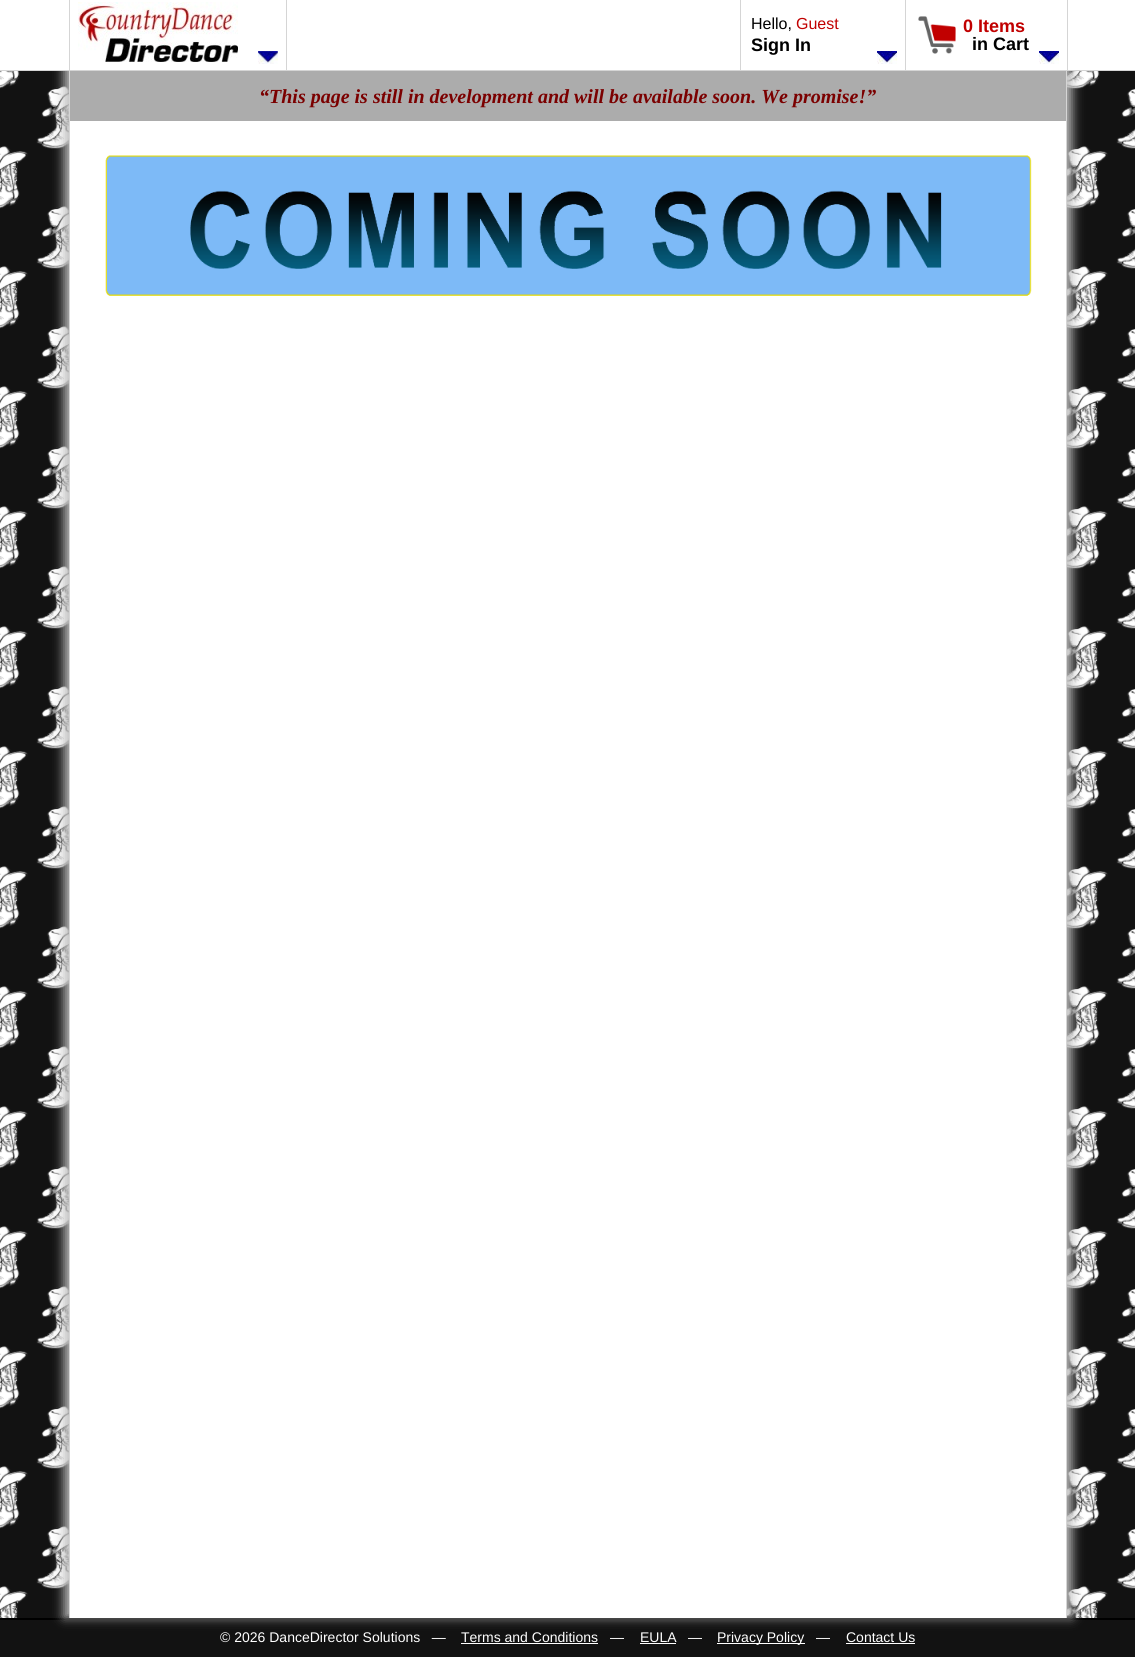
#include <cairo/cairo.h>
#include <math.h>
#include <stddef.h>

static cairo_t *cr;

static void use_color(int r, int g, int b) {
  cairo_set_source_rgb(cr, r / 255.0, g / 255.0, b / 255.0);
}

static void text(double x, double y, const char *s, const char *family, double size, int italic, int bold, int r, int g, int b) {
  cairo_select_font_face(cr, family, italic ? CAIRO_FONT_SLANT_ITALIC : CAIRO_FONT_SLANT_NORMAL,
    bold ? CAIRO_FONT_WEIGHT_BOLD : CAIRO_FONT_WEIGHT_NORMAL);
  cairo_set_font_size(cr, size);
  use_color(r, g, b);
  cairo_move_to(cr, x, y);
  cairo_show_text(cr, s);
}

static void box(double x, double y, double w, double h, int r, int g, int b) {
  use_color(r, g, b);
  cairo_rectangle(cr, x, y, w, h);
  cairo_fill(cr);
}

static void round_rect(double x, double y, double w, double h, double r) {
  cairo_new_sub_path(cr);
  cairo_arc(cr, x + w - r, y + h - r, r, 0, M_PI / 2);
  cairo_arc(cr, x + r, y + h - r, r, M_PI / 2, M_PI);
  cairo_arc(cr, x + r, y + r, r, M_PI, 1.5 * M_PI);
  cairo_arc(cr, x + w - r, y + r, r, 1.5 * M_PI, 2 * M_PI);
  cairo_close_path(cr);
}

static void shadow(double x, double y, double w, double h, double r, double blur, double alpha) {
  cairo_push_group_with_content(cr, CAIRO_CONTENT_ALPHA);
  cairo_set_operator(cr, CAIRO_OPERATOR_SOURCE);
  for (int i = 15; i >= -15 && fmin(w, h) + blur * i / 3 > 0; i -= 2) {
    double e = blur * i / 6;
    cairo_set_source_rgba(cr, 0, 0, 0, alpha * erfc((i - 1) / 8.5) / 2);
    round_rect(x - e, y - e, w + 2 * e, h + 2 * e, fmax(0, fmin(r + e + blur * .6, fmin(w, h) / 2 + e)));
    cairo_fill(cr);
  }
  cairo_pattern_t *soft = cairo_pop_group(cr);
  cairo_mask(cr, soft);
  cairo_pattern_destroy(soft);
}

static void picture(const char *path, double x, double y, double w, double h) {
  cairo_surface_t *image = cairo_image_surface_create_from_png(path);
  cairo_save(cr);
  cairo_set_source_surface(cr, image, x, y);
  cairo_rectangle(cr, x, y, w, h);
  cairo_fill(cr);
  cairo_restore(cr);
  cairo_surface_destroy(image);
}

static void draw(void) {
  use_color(18, 18, 18);
  cairo_paint(cr);
  picture("img_01.png", 0, 71, 1135, 1547);
  box(0, 1618, 1135, 2, 0, 0, 0);
  use_color(189, 189, 189);
  shadow(64, -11, 1008, 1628, 0, 5.5, 1);
  box(0, 0, 1135, 70, 255, 255, 255);
  box(0, 70, 1135, 1, 213, 213, 213);
  box(286, 0, 1, 70, 213, 213, 213);
  box(69, 0, 1, 70, 213, 213, 213);
  picture("img_02.png", 78, 2, 160, 60);
  picture("img_03.png", 258, 51, 20, 13);
  box(905, 0, 1, 70, 213, 213, 213);
  box(740, 0, 1, 70, 213, 213, 213);
  picture("img_04.png", 877, 51, 20, 13);
  box(1067, 0, 1, 70, 213, 213, 213);
  picture("img_05.png", 918, 16, 38, 38);
  picture("img_04.png", 1039, 51, 20, 13);
  box(70, 121, 996, 1497, 255, 255, 255);
  box(1066, 71, 1, 1547, 213, 213, 213);
  box(69, 71, 1, 1547, 213, 213, 213);
  box(70, 71, 996, 50, 172, 172, 172);
  picture("img_06.png", 105, 155, 927, 141);
  box(461, 1643, 137, 1, 255, 255, 255);
  box(640, 1643, 36, 1, 255, 255, 255);
  box(717, 1643, 88, 1, 255, 255, 255);
  box(846, 1643, 69, 1, 255, 255, 255);
  text(751, 29, "Hello,", "Liberation Sans", 16, 0, 0, 0, 0, 0);
  text(796, 29, "Guest", "Liberation Sans", 16, 0, 0, 193, 0, 0);
  text(751, 51, "Sign In", "Liberation Sans", 18, 0, 1, 0, 0, 0);
  text(963, 32, "0 Items", "Liberation Sans", 18, 0, 1, 193, 0, 0);
  text(972, 50, "in Cart", "Liberation Sans", 18, 0, 1, 0, 0, 0);
  text(259, 103, "“This page is still in development and will be available soon. We promise!”", "Liberation Serif", 20, 1, 1, 123, 0, 0);
  text(220, 1642, "© 2026 DanceDirector Solutions   —", "Liberation Sans", 14, 0, 0, 255, 255, 255);
  text(461, 1642, "Terms and Conditions", "Liberation Sans", 14, 0, 0, 255, 255, 255);
  text(610, 1642, "—", "Liberation Sans", 14, 0, 0, 255, 255, 255);
  text(640, 1642, "EULA", "Liberation Sans", 14, 0, 0, 255, 255, 255);
  text(688, 1642, "—", "Liberation Sans", 14, 0, 0, 255, 255, 255);
  text(717, 1642, "Privacy Policy", "Liberation Sans", 14, 0, 0, 255, 255, 255);
  text(816, 1642, "—", "Liberation Sans", 14, 0, 0, 255, 255, 255);
  text(846, 1642, "Contact Us", "Liberation Sans", 14, 0, 0, 255, 255, 255);
}

int main(void) {
  cairo_surface_t *surface = cairo_image_surface_create(CAIRO_FORMAT_RGB24, 1135, 1657);
  cr = cairo_create(surface);
  cairo_font_options_t *options = cairo_font_options_create();
  cairo_font_options_set_hint_metrics(options, CAIRO_HINT_METRICS_OFF);
  cairo_font_options_set_hint_style(options, CAIRO_HINT_STYLE_NONE);
  cairo_set_font_options(cr, options);
  cairo_set_miter_limit(cr, 4);
  draw();
  cairo_surface_write_to_png(surface, "out.png");
  cairo_font_options_destroy(options);
  cairo_destroy(cr);
  cairo_surface_destroy(surface);
  return 0;
}
